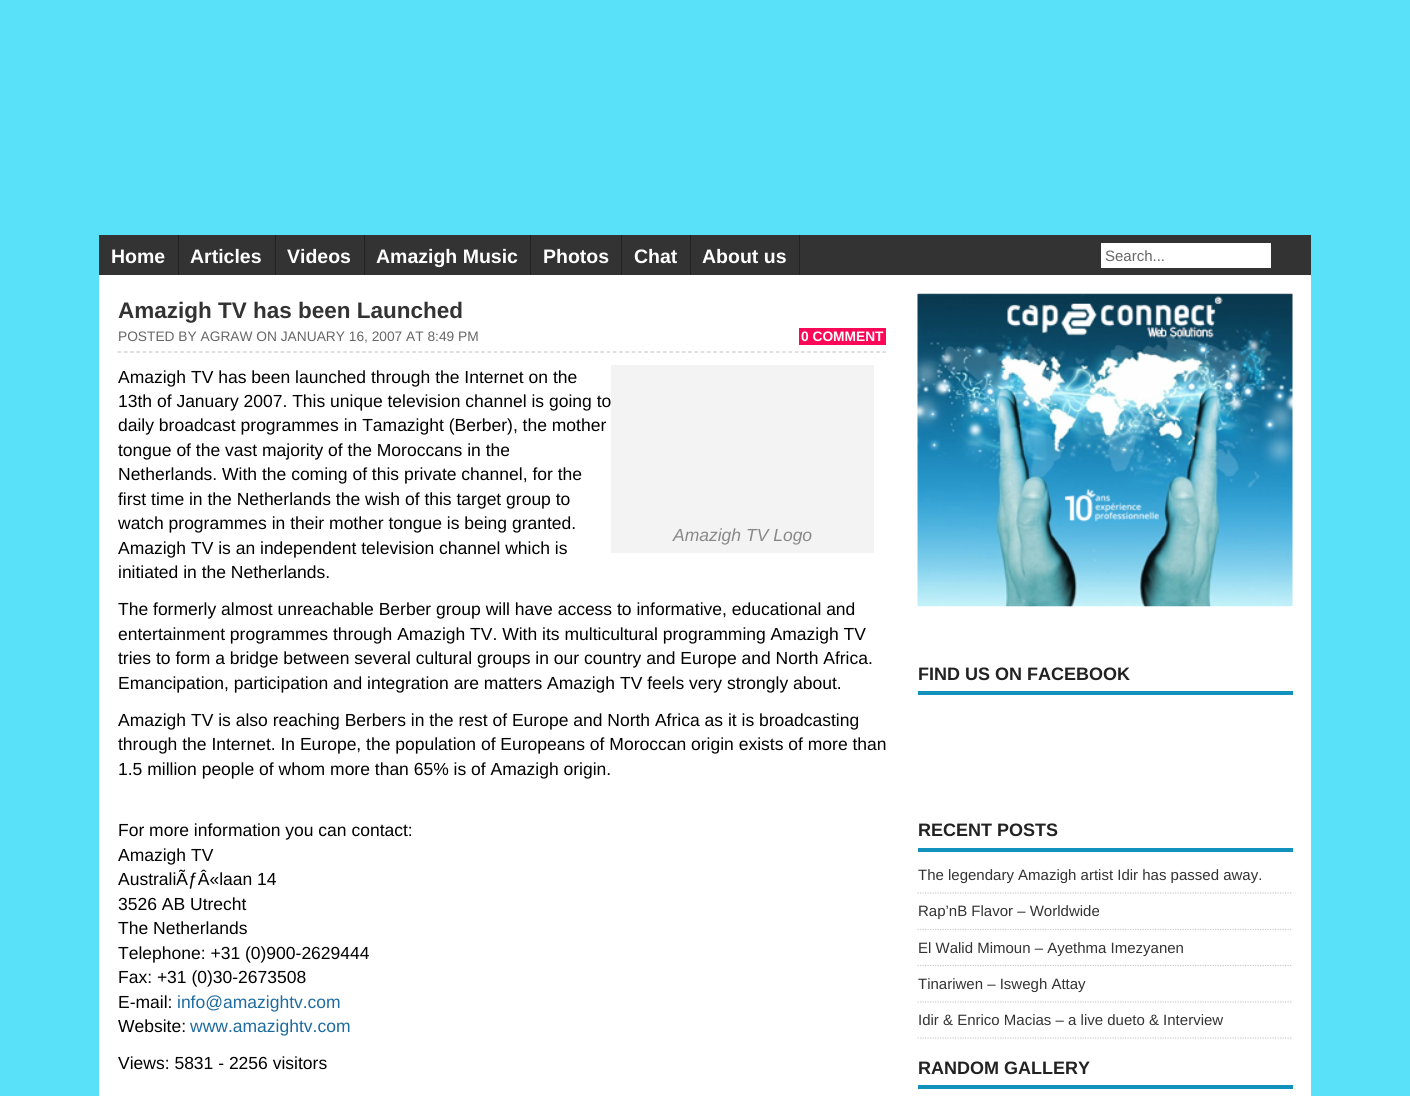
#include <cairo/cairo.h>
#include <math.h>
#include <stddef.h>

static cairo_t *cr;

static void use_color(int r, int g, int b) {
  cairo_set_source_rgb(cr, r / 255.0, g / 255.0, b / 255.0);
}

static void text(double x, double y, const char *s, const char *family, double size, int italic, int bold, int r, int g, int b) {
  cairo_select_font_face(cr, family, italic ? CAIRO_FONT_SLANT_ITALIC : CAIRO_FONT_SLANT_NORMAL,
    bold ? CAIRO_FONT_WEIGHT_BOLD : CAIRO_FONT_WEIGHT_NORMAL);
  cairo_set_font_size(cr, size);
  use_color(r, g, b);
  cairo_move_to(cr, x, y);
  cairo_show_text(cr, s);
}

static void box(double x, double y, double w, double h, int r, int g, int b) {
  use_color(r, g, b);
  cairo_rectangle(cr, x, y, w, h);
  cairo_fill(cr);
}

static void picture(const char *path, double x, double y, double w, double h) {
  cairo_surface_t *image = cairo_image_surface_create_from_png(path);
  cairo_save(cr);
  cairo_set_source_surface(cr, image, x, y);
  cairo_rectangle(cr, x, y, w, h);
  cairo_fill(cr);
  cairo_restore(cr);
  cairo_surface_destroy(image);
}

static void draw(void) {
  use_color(89, 225, 249);
  cairo_paint(cr);
  box(99, 235, 1212, 40, 51, 51, 51);
  box(178, 235, 1, 40, 34, 34, 34);
  box(275, 235, 1, 40, 34, 34, 34);
  box(364, 235, 1, 40, 34, 34, 34);
  box(530, 235, 1, 40, 34, 34, 34);
  box(621, 235, 1, 40, 34, 34, 34);
  box(690, 235, 1, 40, 34, 34, 34);
  box(799, 235, 1, 40, 34, 34, 34);
  box(1101, 243, 170, 25, 255, 255, 255);
  box(99, 275, 1212, 821, 255, 255, 255);
  cairo_new_path(cr);
  cairo_move_to(cr, 117.5, 352);
  cairo_line_to(cr, 886, 352);
  use_color(204, 204, 204);
  cairo_set_line_width(cr, 1.2);
  cairo_set_dash(cr, (double[]){3.75, 2.52}, 2, 0);
  cairo_stroke(cr);
  box(799, 328, 87, 17, 253, 8, 89);
  box(611, 365, 263, 188, 243, 243, 243);
  picture("img_01.png", 917, 293, 376, 314);
  box(918, 691, 375, 4, 17, 145, 187);
  box(918, 848, 375, 4, 17, 145, 187);
  cairo_new_path(cr);
  cairo_move_to(cr, 917.5, 893);
  cairo_line_to(cr, 1292.5, 893);
  use_color(204, 204, 204);
  cairo_set_dash(cr, (double[]){1.25, 1.25}, 2, 0);
  cairo_stroke(cr);
  cairo_new_path(cr);
  cairo_move_to(cr, 917.5, 929.5);
  cairo_line_to(cr, 1292.5, 929.5);
  cairo_stroke(cr);
  cairo_new_path(cr);
  cairo_move_to(cr, 917.5, 965.5);
  cairo_line_to(cr, 1292.5, 965.5);
  cairo_stroke(cr);
  cairo_new_path(cr);
  cairo_move_to(cr, 917.5, 1002);
  cairo_line_to(cr, 1292.5, 1002);
  cairo_stroke(cr);
  cairo_new_path(cr);
  cairo_move_to(cr, 917.5, 1038);
  cairo_line_to(cr, 1292.5, 1038);
  cairo_stroke(cr);
  box(918, 1085, 375, 4, 17, 145, 187);
  text(111, 263, "Home", "Liberation Sans", 19.5, 0, 1, 255, 255, 255);
  text(190, 263, "Articles", "Liberation Sans", 19.5, 0, 1, 255, 255, 255);
  text(287, 263, "Videos", "Liberation Sans", 19.5, 0, 1, 255, 255, 255);
  text(376, 263, "Amazigh Music", "Liberation Sans", 19.5, 0, 1, 255, 255, 255);
  text(543, 263, "Photos", "Liberation Sans", 19.5, 0, 1, 255, 255, 255);
  text(634, 263, "Chat", "Liberation Sans", 19.5, 0, 1, 255, 255, 255);
  text(702, 263, "About us", "Liberation Sans", 19.5, 0, 1, 255, 255, 255);
  text(1105, 261, "Search...", "Liberation Sans", 15, 0, 0, 102, 102, 102);
  text(118, 318, "Amazigh TV has been Launched", "Liberation Sans", 22.5, 0, 1, 51, 51, 51);
  text(118, 341, "POSTED BY AGRAW ON JANUARY 16, 2007 AT 8:49 PM", "Liberation Sans", 13.75, 0, 0, 102, 102, 102);
  text(801, 341, "0 COMMENT", "Liberation Sans", 13.75, 0, 1, 255, 255, 255);
  text(118, 383, "Amazigh TV has been launched through the Internet on the", "Liberation Sans", 17.5, 0, 0, 0, 0, 0);
  text(118, 407, "13th of January 2007. This unique television channel is going to", "Liberation Sans", 17.5, 0, 0, 0, 0, 0);
  text(118, 431, "daily broadcast programmes in Tamazight (Berber), the mother", "Liberation Sans", 17.5, 0, 0, 0, 0, 0);
  text(118, 456, "tongue of the vast majority of the Moroccans in the", "Liberation Sans", 17.5, 0, 0, 0, 0, 0);
  text(118, 480, "Netherlands. With the coming of this private channel, for the", "Liberation Sans", 17.5, 0, 0, 0, 0, 0);
  text(118, 505, "first time in the Netherlands the wish of this target group to", "Liberation Sans", 17.5, 0, 0, 0, 0, 0);
  text(118, 529, "watch programmes in their mother tongue is being granted.", "Liberation Sans", 17.5, 0, 0, 0, 0, 0);
  text(118, 554, "Amazigh TV is an independent television channel which is", "Liberation Sans", 17.5, 0, 0, 0, 0, 0);
  text(118, 578, "initiated in the Netherlands.", "Liberation Sans", 17.5, 0, 0, 0, 0, 0);
  text(673, 541, "Amazigh TV Logo", "Liberation Sans", 17.5, 1, 0, 136, 136, 136);
  text(118, 615, "The formerly almost unreachable Berber group will have access to informative, educational and", "Liberation Sans", 17.5, 0, 0, 0, 0, 0);
  text(118, 640, "entertainment programmes through Amazigh TV. With its multicultural programming Amazigh TV", "Liberation Sans", 17.5, 0, 0, 0, 0, 0);
  text(118, 664, "tries to form a bridge between several cultural groups in our country and Europe and North Africa.", "Liberation Sans", 17.5, 0, 0, 0, 0, 0);
  text(118, 689, "Emancipation, participation and integration are matters Amazigh TV feels very strongly about.", "Liberation Sans", 17.5, 0, 0, 0, 0, 0);
  text(118, 726, "Amazigh TV is also reaching Berbers in the rest of Europe and North Africa as it is broadcasting", "Liberation Sans", 17.5, 0, 0, 0, 0, 0);
  text(118, 750, "through the Internet. In Europe, the population of Europeans of Moroccan origin exists of more than", "Liberation Sans", 17.5, 0, 0, 0, 0, 0);
  text(118, 775, "1.5 million people of whom more than 65% is of Amazigh origin.", "Liberation Sans", 17.5, 0, 0, 0, 0, 0);
  text(118, 836, "For more information you can contact:", "Liberation Sans", 17.5, 0, 0, 0, 0, 0);
  text(118, 861, "Amazigh TV", "Liberation Sans", 17.5, 0, 0, 0, 0, 0);
  text(118, 885, "AustraliÃƒÂ«laan 14", "Liberation Sans", 17.5, 0, 0, 0, 0, 0);
  text(118, 910, "3526 AB Utrecht", "Liberation Sans", 17.5, 0, 0, 0, 0, 0);
  text(118, 934, "The Netherlands", "Liberation Sans", 17.5, 0, 0, 0, 0, 0);
  text(118, 959, "Telephone: +31 (0)900-2629444", "Liberation Sans", 17.5, 0, 0, 0, 0, 0);
  text(118, 983, "Fax: +31 (0)30-2673508", "Liberation Sans", 17.5, 0, 0, 0, 0, 0);
  text(118, 1008, "E-mail:", "Liberation Sans", 17.5, 0, 0, 0, 0, 0);
  text(177, 1008, "info@amazightv.com", "Liberation Sans", 17.5, 0, 0, 29, 107, 157);
  text(118, 1032, "Website:", "Liberation Sans", 17.5, 0, 0, 0, 0, 0);
  text(190, 1032, "www.amazightv.com", "Liberation Sans", 17.5, 0, 0, 29, 107, 157);
  text(118, 1069, "Views: 5831 - 2256 visitors", "Liberation Sans", 17.5, 0, 0, 0, 0, 0);
  text(918, 680, "FIND US ON FACEBOOK", "Liberation Sans", 18, 0, 1, 34, 34, 34);
  text(918, 836, "RECENT POSTS", "Liberation Sans", 18, 0, 1, 34, 34, 34);
  text(918, 880, "The legendary Amazigh artist Idir has passed away.", "Liberation Sans", 15, 0, 0, 51, 51, 51);
  text(918, 916, "Rap’nB Flavor – Worldwide", "Liberation Sans", 15, 0, 0, 51, 51, 51);
  text(918, 953, "El Walid Mimoun – Ayethma Imezyanen", "Liberation Sans", 15, 0, 0, 51, 51, 51);
  text(918, 989, "Tinariwen – Iswegh Attay", "Liberation Sans", 15, 0, 0, 51, 51, 51);
  text(918, 1025, "Idir & Enrico Macias – a live dueto & Interview", "Liberation Sans", 15, 0, 0, 51, 51, 51);
  text(918, 1074, "RANDOM GALLERY", "Liberation Sans", 18, 0, 1, 34, 34, 34);
}

int main(void) {
  cairo_surface_t *surface = cairo_image_surface_create(CAIRO_FORMAT_RGB24, 1410, 1096);
  cr = cairo_create(surface);
  cairo_font_options_t *options = cairo_font_options_create();
  cairo_font_options_set_hint_metrics(options, CAIRO_HINT_METRICS_OFF);
  cairo_font_options_set_hint_style(options, CAIRO_HINT_STYLE_NONE);
  cairo_set_font_options(cr, options);
  cairo_set_miter_limit(cr, 4);
  draw();
  cairo_surface_write_to_png(surface, "out.png");
  cairo_font_options_destroy(options);
  cairo_destroy(cr);
  cairo_surface_destroy(surface);
  return 0;
}
